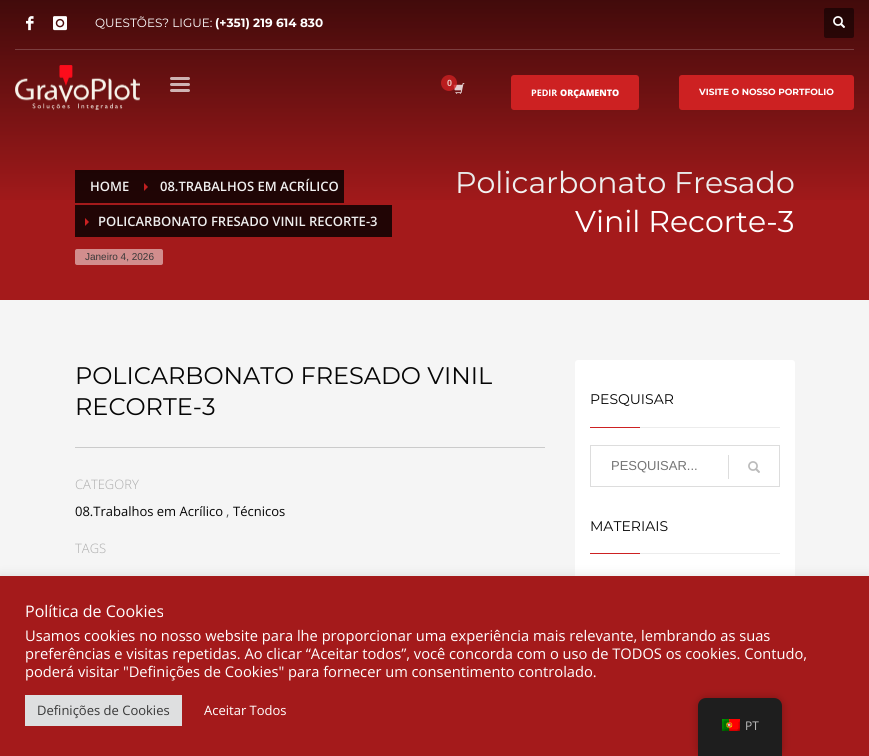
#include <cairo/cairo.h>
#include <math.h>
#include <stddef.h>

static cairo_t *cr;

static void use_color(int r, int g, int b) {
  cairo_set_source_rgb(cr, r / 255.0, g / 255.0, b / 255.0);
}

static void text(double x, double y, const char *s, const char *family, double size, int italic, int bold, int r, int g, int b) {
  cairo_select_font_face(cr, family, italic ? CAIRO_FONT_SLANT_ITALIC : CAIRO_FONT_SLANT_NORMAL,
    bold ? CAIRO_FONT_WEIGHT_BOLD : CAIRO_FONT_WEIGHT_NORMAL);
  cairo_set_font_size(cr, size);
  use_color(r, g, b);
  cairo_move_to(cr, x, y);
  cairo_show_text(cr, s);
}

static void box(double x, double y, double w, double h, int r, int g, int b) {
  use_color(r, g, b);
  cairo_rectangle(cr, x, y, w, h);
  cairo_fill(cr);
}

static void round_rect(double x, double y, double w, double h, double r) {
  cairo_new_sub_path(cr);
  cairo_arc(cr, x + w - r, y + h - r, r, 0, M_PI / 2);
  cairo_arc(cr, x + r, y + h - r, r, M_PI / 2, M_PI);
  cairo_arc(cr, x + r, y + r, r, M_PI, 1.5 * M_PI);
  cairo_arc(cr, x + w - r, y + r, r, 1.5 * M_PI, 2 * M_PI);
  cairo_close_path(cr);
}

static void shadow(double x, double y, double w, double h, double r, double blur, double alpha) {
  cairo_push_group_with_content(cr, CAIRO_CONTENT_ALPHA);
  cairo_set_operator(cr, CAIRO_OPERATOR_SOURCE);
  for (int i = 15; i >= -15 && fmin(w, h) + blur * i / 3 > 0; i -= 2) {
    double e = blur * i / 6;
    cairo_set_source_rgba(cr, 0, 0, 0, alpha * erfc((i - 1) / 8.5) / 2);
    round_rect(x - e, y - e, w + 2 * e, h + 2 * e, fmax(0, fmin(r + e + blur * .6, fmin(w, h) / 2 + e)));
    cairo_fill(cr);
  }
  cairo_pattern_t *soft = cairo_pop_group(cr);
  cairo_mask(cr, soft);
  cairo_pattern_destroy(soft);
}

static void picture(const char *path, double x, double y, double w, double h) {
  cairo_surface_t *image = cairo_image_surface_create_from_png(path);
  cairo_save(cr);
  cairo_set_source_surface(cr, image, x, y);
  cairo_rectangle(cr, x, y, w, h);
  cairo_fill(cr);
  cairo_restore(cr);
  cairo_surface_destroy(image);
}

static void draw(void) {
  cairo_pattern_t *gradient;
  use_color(245, 245, 245);
  cairo_paint(cr);
  box(0, 0, 869, 300, 164, 26, 27);
  box(75, 170, 269, 33, 33, 5, 5);
  use_color(205, 33, 34);
  cairo_new_path(cr);
  cairo_move_to(cr, 144, 191);
  cairo_line_to(cr, 144, 183);
  cairo_line_to(cr, 148, 187);
  cairo_close_path(cr);
  cairo_fill(cr);
  box(75, 205, 317, 32, 33, 5, 5);
  use_color(205, 33, 34);
  cairo_new_path(cr);
  cairo_move_to(cr, 85, 226);
  cairo_line_to(cr, 85, 218);
  cairo_line_to(cr, 89, 222);
  cairo_close_path(cr);
  cairo_fill(cr);
  use_color(210, 141, 141);
  round_rect(75, 249, 88, 16, 2);
  cairo_fill(cr);
  box(75, 447, 470, 1, 203, 203, 203);
  use_color(255, 255, 255);
  round_rect(575, 360, 220, 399, 3);
  cairo_fill(cr);
  box(590, 427, 50, 1, 205, 33, 34);
  box(640, 427, 140, 1, 236, 236, 236);
  cairo_rectangle(cr, 590.5, 445.5, 189, 41);
  use_color(221, 221, 221);
  cairo_set_line_width(cr, 1);
  cairo_stroke(cr);
  box(728, 455, 1, 24, 221, 221, 221);
  picture("img_06.png", 748, 461, 12, 12);
  box(590, 553, 50, 1, 205, 33, 34);
  box(640, 553, 140, 1, 236, 236, 236);
  use_color(172, 171, 171);
  shadow(0, 575, 869, 180, 0, 5, 0.3);
  box(0, 576, 869, 180, 164, 26, 27);
  box(25, 695, 157, 31, 222, 223, 224);
  use_color(0, 0, 0);
  shadow(698, 698, 84, 58, 8, 4, 0.25);
  use_color(30, 30, 30);
  cairo_new_path(cr);
  cairo_move_to(cr, 706, 698);
  cairo_line_to(cr, 774, 698);
  cairo_curve_to(cr, 778.5, 698, 782, 701.5, 782, 706);
  cairo_line_to(cr, 782, 756);
  cairo_line_to(cr, 698, 756);
  cairo_line_to(cr, 698, 706);
  cairo_curve_to(cr, 698, 701.5, 701.5, 698, 706, 698);
  cairo_close_path(cr);
  cairo_fill(cr);
  picture("img_07.png", 722, 719, 18, 12);
  text(90, 191, "HOME", "Open Sans SemiBold", 13, 0, 0, 255, 255, 255);
  text(160, 191, "08.TRABALHOS EM ACRÍLICO", "Open Sans SemiBold", 13, 0, 0, 255, 255, 255);
  text(98, 226, "POLICARBONATO FRESADO VINIL RECORTE-3", "Open Sans SemiBold", 13, 0, 0, 238, 238, 238);
  text(85, 260, "Janeiro 4, 2026", "Liberation Sans", 10, 0, 0, 56, 56, 56);
  text(455, 193, "Policarbonato Fresado", "Montserrat", 30, 0, 0, 255, 255, 255);
  gradient = cairo_pattern_create_linear(435, 0, 435, 207);
  cairo_pattern_add_color_stop_rgba(gradient, 0, 0, 0, 0, 0.6);
  cairo_pattern_add_color_stop_rgba(gradient, 1, 0, 0, 0, 0);
  cairo_set_source(cr, gradient);
  cairo_pattern_destroy(gradient);
  cairo_rectangle(cr, 0, 0, 869, 200);
  cairo_fill(cr);
  cairo_set_source_rgba(cr, 0, 0, 0, 0.5);
  round_rect(824, 8, 30, 30, 2);
  cairo_fill(cr);
  picture("img_03.png", 833, 16, 12, 12);
  picture("img_02.png", 53, 16, 14, 15);
  picture("img_01.png", 26, 16, 8, 15);
  picture("img_05.png", 453, 83, 12, 11);
  cairo_set_source_rgba(cr, 0.804, 0.129, 0.133, 0.8);
  cairo_arc(cr, 449, 83, 8, 0, 2 * M_PI);
  cairo_fill(cr);
  text(447, 86, "0", "Liberation Sans", 9, 0, 1, 235, 201, 194);
  use_color(208, 179, 179);
  round_rect(170, 89, 20, 3, 1.5);
  cairo_fill(cr);
  use_color(207, 178, 179);
  round_rect(170, 83, 20, 3, 1.5);
  cairo_fill(cr);
  use_color(207, 178, 178);
  round_rect(170, 77, 20, 3, 1.5);
  cairo_fill(cr);
  picture("img_04.png", 15, 65, 125, 45);
  use_color(205, 33, 34);
  round_rect(679, 75, 175, 35, 3);
  cairo_fill(cr);
  text(699, 95, "VISITE O NOSSO PORTFOLIO", "Montserrat", 9, 0, 1, 255, 255, 255);
  use_color(205, 33, 34);
  round_rect(511, 75, 128, 35, 3);
  cairo_fill(cr);
  text(560, 96, "ORÇAMENTO", "Open Sans ExtraBold", 9, 0, 0, 255, 255, 255);
  text(531, 96, "PEDIR", "Open Sans", 9, 0, 1, 255, 255, 255);
  box(15, 49, 839, 1, 123, 62, 63);
  text(215, 27, "(+351) 219 614 830", "Montserrat", 12, 0, 1, 255, 255, 255);
  text(95, 27, "QUESTÕES? LIGUE:", "Montserrat", 12, 0, 0, 255, 255, 255);
  text(575, 232, "Vinil Recorte-3", "Montserrat", 30, 0, 0, 255, 255, 255);
  text(75, 384, "POLICARBONATO FRESADO VINIL", "Montserrat", 24, 0, 0, 5, 5, 5);
  text(75, 415, "RECORTE-3", "Montserrat", 24, 0, 0, 5, 5, 5);
  text(75, 489, "CATEGORY", "Open Sans Light", 13, 0, 0, 171, 171, 171);
  text(75, 516, "08.Trabalhos em Acrílico", "Open Sans", 13, 0, 0, 5, 5, 5);
  text(226, 516, ",", "Open Sans", 13, 0, 0, 83, 83, 83);
  text(233, 516, "Técnicos", "Open Sans", 13, 0, 0, 5, 5, 5);
  text(75, 553, "TAGS", "Open Sans Light", 13, 0, 0, 171, 171, 171);
  text(590, 404, "PESQUISAR", "Montserrat", 14, 0, 0, 5, 5, 5);
  text(611, 470, "PESQUISAR...", "Liberation Sans", 13, 0, 0, 117, 117, 117);
  text(590, 531, "MATERIAIS", "Montserrat", 14, 0, 0, 5, 5, 5);
  text(25, 617, "Política de Cookies", "Open Sans", 16, 0, 0, 255, 255, 255);
  text(25, 641, "Usamos cookies no nosso website para lhe proporcionar uma experiência mais relevante, lembrando as suas", "Open Sans", 14.67, 0, 0, 255, 255, 255);
  text(25, 659, "preferências e visitas repetidas. Ao clicar “Aceitar todos”, você concorda com o uso de TODOS os cookies. Contudo,", "Open Sans", 14.67, 0, 0, 255, 255, 255);
  text(25, 677, "poderá visitar \"Definições de Cookies\" para fornecer um consentimento controlado.", "Open Sans", 14.67, 0, 0, 255, 255, 255);
  text(37, 715, "Definições de Cookies", "Open Sans", 13, 0, 0, 56, 56, 56);
  text(204, 715, "Aceitar Todos", "Open Sans", 13, 0, 0, 255, 255, 255);
  text(745, 730, "PT", "Open Sans", 12, 0, 0, 189, 189, 189);
}

int main(void) {
  cairo_surface_t *surface = cairo_image_surface_create(CAIRO_FORMAT_RGB24, 869, 756);
  cr = cairo_create(surface);
  cairo_font_options_t *options = cairo_font_options_create();
  cairo_font_options_set_hint_metrics(options, CAIRO_HINT_METRICS_OFF);
  cairo_font_options_set_hint_style(options, CAIRO_HINT_STYLE_NONE);
  cairo_set_font_options(cr, options);
  cairo_set_miter_limit(cr, 4);
  draw();
  cairo_surface_write_to_png(surface, "out.png");
  cairo_font_options_destroy(options);
  cairo_destroy(cr);
  cairo_surface_destroy(surface);
  return 0;
}
